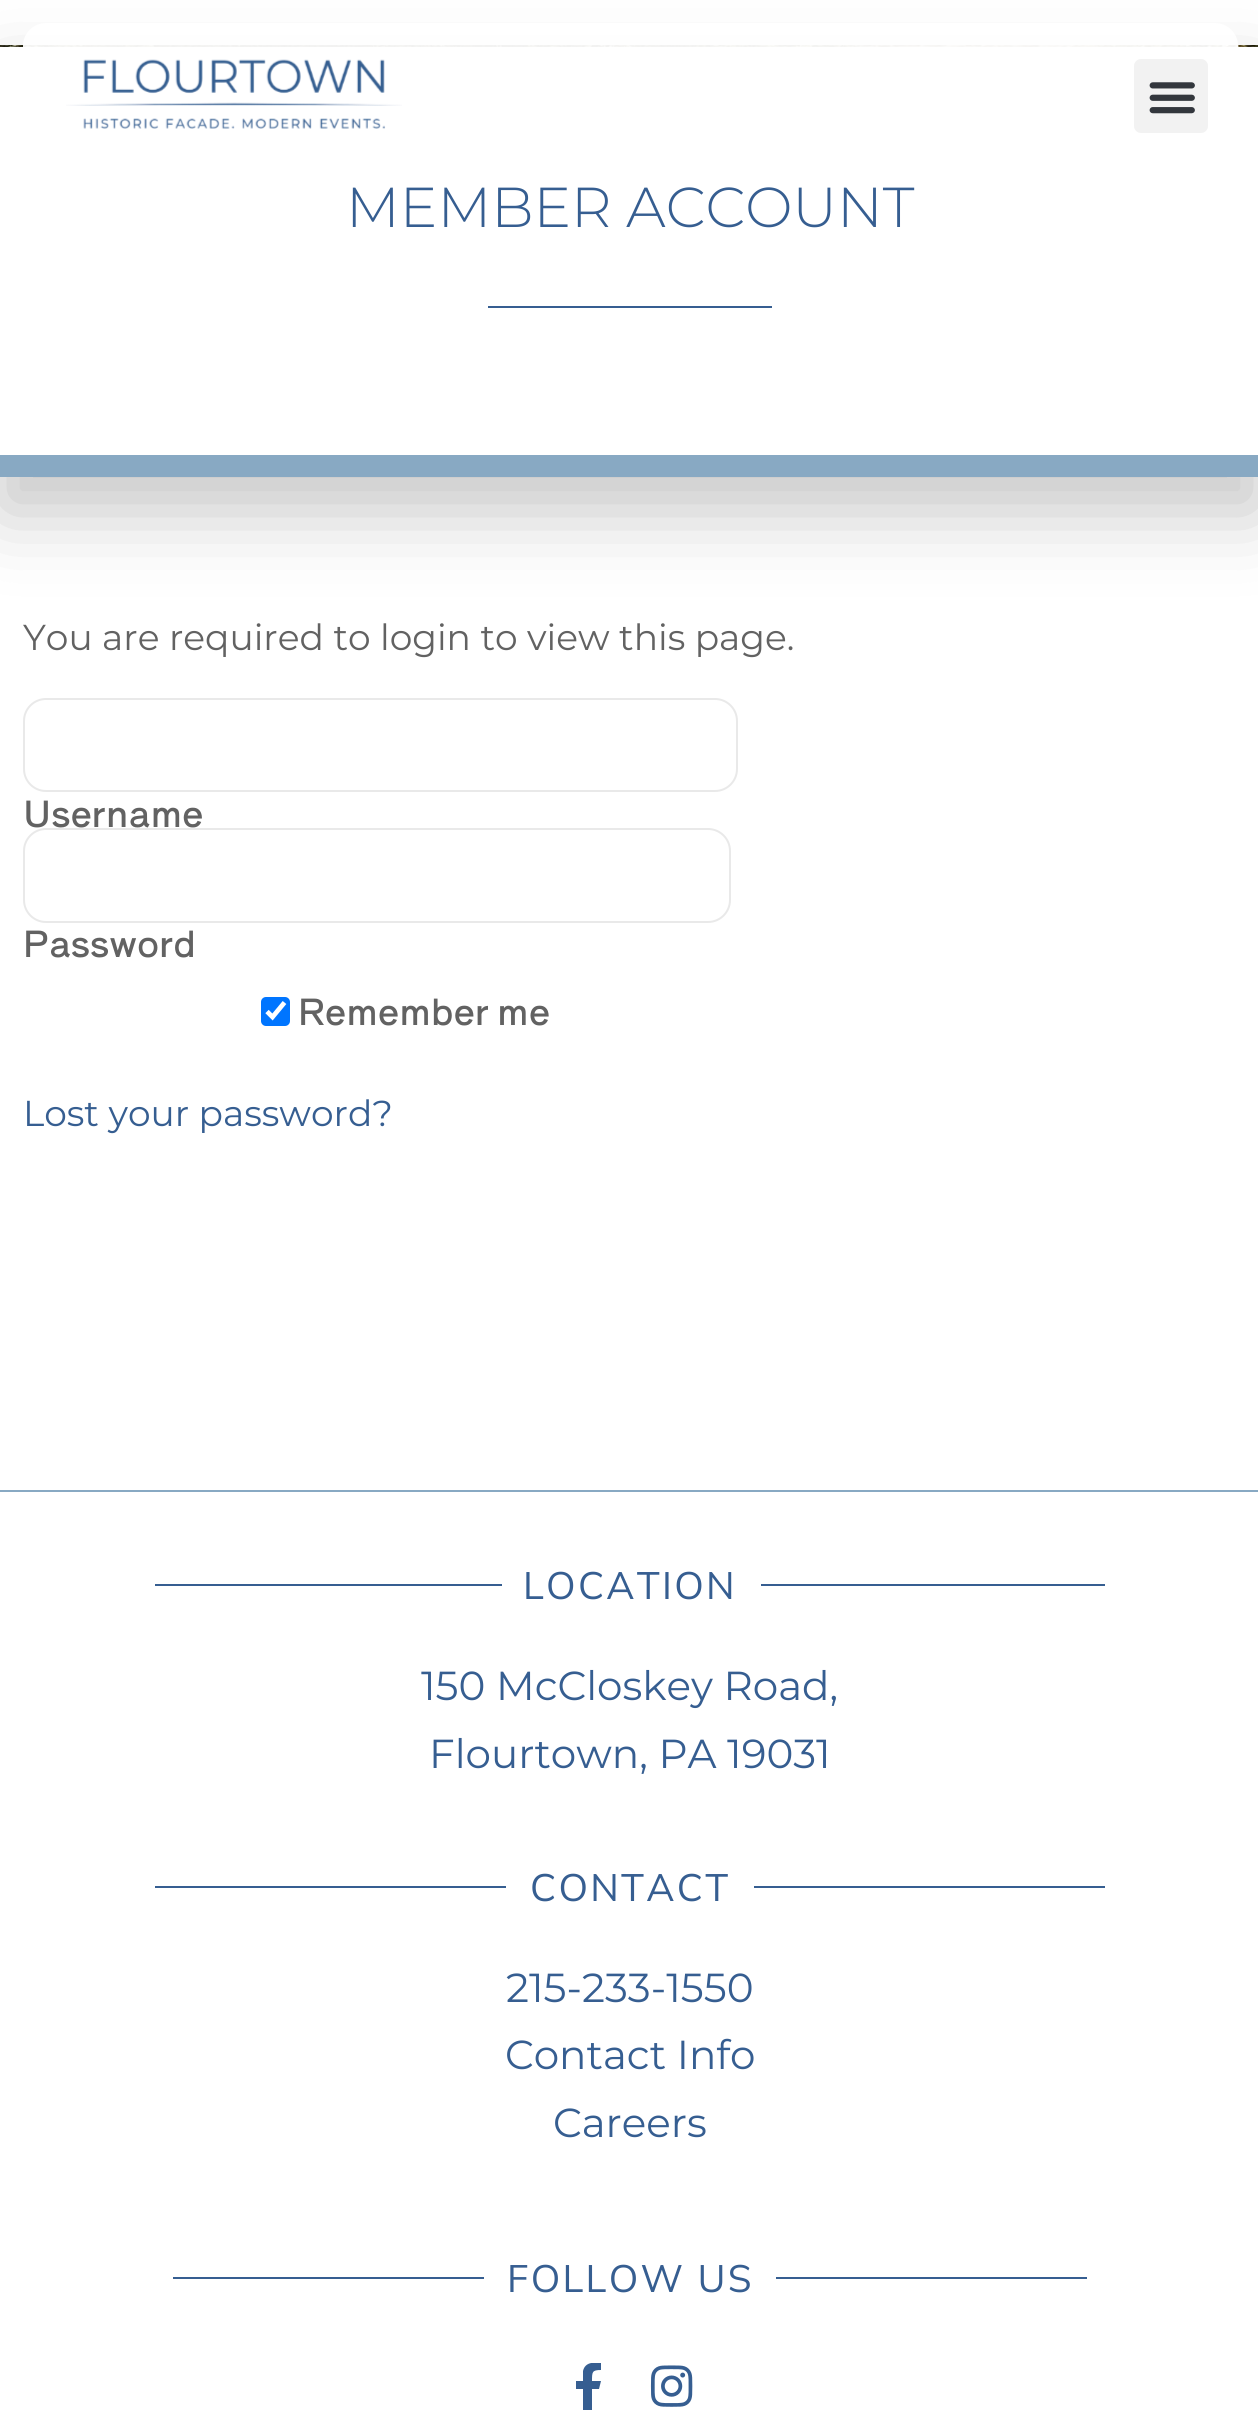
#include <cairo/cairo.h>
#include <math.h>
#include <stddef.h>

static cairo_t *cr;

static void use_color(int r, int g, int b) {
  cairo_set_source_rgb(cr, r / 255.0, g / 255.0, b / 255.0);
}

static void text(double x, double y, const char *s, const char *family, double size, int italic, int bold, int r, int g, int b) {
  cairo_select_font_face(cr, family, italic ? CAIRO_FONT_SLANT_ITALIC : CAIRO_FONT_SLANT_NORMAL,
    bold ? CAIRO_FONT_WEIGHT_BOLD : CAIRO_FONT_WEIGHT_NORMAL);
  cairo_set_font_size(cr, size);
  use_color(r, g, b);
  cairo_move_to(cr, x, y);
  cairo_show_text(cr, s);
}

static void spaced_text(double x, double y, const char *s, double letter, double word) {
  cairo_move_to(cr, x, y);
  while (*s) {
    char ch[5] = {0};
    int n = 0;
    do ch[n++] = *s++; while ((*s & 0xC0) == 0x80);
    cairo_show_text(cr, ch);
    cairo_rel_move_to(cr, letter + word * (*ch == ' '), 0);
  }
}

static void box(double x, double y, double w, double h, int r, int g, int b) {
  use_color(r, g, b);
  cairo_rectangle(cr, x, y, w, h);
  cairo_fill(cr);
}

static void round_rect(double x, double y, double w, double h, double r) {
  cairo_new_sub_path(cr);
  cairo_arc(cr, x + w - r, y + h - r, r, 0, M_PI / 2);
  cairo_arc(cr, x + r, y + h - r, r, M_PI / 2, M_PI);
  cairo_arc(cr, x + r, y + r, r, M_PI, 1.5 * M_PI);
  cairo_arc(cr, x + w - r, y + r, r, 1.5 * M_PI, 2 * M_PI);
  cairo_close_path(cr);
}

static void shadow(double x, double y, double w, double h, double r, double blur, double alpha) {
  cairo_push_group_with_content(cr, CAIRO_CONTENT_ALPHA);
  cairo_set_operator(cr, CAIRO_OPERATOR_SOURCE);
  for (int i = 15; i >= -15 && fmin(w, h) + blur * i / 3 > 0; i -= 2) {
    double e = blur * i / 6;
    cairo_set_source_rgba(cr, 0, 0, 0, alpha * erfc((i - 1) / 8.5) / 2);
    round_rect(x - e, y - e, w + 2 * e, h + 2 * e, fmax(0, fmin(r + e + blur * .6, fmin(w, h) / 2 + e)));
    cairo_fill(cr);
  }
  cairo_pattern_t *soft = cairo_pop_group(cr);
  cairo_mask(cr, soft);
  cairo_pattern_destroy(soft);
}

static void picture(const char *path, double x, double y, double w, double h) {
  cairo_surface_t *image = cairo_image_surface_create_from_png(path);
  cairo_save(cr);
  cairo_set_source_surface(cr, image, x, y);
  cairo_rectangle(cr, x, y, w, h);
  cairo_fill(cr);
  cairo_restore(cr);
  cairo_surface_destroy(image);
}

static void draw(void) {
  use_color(255, 255, 255);
  cairo_paint(cr);
  picture("img_03.png", 0, 45, 1258, 2);
  use_color(0, 0, 0);
  shadow(0, 81, 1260, 430, 0, 39.5, 0.23);
  box(0, 47, 1258, 408, 255, 255, 255);
  cairo_set_source_rgba(cr, 1, 1, 1, 0.94);
  round_rect(23, 23, 1215, 148, 23);
  cairo_fill(cr);
  picture("img_01.png", 66, 59, 336, 70);
  use_color(242, 242, 242);
  round_rect(1134, 59, 74, 74, 7);
  cairo_fill(cr);
  picture("img_02.png", 1149, 82, 46, 32);
  box(0, 455, 1258, 22, 136, 169, 195);
  box(488, 306, 284, 2, 54, 94, 145);
  round_rect(24, 699, 713, 92, 22);
  use_color(233, 233, 233);
  cairo_stroke(cr);
  round_rect(24, 829, 706, 93, 22);
  cairo_stroke(cr);
  use_color(0, 117, 255);
  round_rect(261, 997, 29, 29, 5);
  cairo_fill(cr);
  cairo_new_path(cr);
  cairo_move_to(cr, 267, 1011.5);
  cairo_line_to(cr, 272.5, 1017);
  cairo_line_to(cr, 284.5, 1002.5);
  use_color(255, 255, 255);
  cairo_set_line_width(cr, 4.7);
  cairo_stroke(cr);
  box(0, 1490, 1258, 2, 136, 169, 195);
  box(155, 1584, 347, 2, 54, 94, 145);
  box(761, 1584, 344, 2, 54, 94, 145);
  box(155, 1886, 351, 2, 54, 94, 145);
  box(754, 1886, 351, 2, 54, 94, 145);
  box(173, 2277, 311, 2, 54, 94, 145);
  box(776, 2277, 311, 2, 54, 94, 145);
  cairo_save(cr);
  cairo_rectangle(cr, 565, 2363, 47, 47);
  cairo_clip(cr);
  cairo_new_path(cr);
  cairo_move_to(cr, 599, 2389);
  cairo_line_to(cr, 601, 2381);
  cairo_line_to(cr, 592, 2381);
  cairo_curve_to(cr, 592, 2372, 592, 2370, 601, 2370);
  cairo_line_to(cr, 601, 2363);
  cairo_curve_to(cr, 594, 2362, 585, 2362, 583, 2371);
  cairo_line_to(cr, 583, 2381);
  cairo_line_to(cr, 576, 2381);
  cairo_line_to(cr, 576, 2389);
  cairo_line_to(cr, 583, 2389);
  cairo_line_to(cr, 583, 2410);
  cairo_line_to(cr, 592, 2410);
  cairo_line_to(cr, 592, 2389);
  cairo_close_path(cr);
  cairo_fill(cr);
  cairo_restore(cr);
  picture("img_04.png", 650, 2365, 43, 42);
  text(346, 227, "MEMBER ACCOUNT", "Montserrat Light", 56.25, 0, 0, 54, 94, 145);
  text(23, 650, "You are required to login to view this page.", "Montserrat", 36, 0, 0, 98, 98, 98);
  text(23, 827, "Username", "Shippori Antique", 36, 0, 0, 98, 98, 98);
  text(23, 957, "Password", "Shippori Antique", 36, 0, 0, 98, 98, 98);
  text(298, 1025, "Remember me", "Shippori Antique", 36, 0, 0, 98, 98, 98);
  text(23, 1126, "Lost your password?", "Montserrat", 36, 0, 0, 54, 94, 145);
  cairo_select_font_face(cr, "Mulish", CAIRO_FONT_SLANT_NORMAL, CAIRO_FONT_WEIGHT_NORMAL);
  cairo_set_font_size(cr, 38.25);
  spaced_text(523, 1599, "LOCATION", 2.25, 0);
  text(421, 1700, "150 McCloskey Road,", "Montserrat", 40.5, 0, 0, 54, 94, 145);
  text(429, 1768, "Flourtown, PA 19031", "Montserrat", 40.5, 0, 0, 54, 94, 145);
  cairo_select_font_face(cr, "Mulish", CAIRO_FONT_SLANT_NORMAL, CAIRO_FONT_WEIGHT_NORMAL);
  cairo_set_font_size(cr, 38.25);
  spaced_text(530, 1901, "CONTACT", 2.25, 0);
  text(506, 2002, "215-233-1550", "Montserrat", 40.5, 0, 0, 54, 94, 145);
  text(505, 2069, "Contact Info", "Montserrat", 40.5, 0, 0, 54, 94, 145);
  text(553, 2137, "Careers", "Montserrat", 40.5, 0, 0, 54, 94, 145);
  cairo_select_font_face(cr, "Mulish", CAIRO_FONT_SLANT_NORMAL, CAIRO_FONT_WEIGHT_NORMAL);
  cairo_set_font_size(cr, 38.25);
  spaced_text(507, 2292, "FOLLOW US", 2.25, 0);
}

int main(void) {
  cairo_surface_t *surface = cairo_image_surface_create(CAIRO_FORMAT_RGB24, 1258, 2421);
  cr = cairo_create(surface);
  cairo_font_options_t *options = cairo_font_options_create();
  cairo_font_options_set_hint_metrics(options, CAIRO_HINT_METRICS_OFF);
  cairo_font_options_set_hint_style(options, CAIRO_HINT_STYLE_NONE);
  cairo_set_font_options(cr, options);
  cairo_set_miter_limit(cr, 4);
  draw();
  cairo_surface_write_to_png(surface, "out.png");
  cairo_font_options_destroy(options);
  cairo_destroy(cr);
  cairo_surface_destroy(surface);
  return 0;
}
